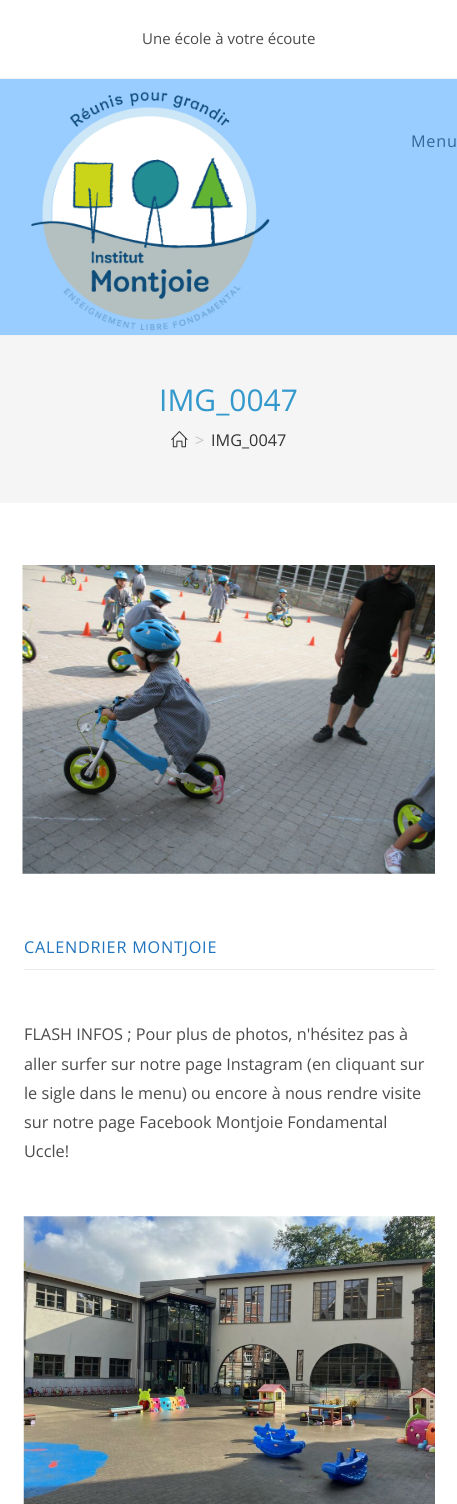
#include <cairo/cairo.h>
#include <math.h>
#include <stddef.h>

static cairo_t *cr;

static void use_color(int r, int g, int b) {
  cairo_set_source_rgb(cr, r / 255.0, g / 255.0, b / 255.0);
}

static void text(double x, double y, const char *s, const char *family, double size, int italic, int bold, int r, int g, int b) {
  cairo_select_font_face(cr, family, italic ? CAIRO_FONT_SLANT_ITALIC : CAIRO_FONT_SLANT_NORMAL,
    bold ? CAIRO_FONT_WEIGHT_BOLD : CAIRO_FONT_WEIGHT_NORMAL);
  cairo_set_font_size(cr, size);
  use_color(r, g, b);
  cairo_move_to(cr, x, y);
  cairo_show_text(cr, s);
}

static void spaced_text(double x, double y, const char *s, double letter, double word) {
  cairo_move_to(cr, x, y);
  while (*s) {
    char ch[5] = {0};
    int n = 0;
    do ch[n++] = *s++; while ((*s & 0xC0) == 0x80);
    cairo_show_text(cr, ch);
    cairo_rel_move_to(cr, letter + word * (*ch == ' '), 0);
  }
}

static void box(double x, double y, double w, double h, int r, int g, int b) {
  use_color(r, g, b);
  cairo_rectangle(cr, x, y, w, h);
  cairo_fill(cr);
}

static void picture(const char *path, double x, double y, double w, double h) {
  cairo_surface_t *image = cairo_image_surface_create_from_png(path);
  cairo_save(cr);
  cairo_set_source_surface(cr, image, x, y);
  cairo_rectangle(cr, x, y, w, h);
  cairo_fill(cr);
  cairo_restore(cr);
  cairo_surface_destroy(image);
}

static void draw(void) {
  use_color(255, 255, 255);
  cairo_paint(cr);
  box(0, 78, 457, 1, 241, 241, 241);
  box(0, 79, 457, 256, 153, 204, 255);
  box(0, 335, 457, 1, 241, 241, 241);
  picture("img_01.png", 31, 91, 239, 240);
  box(0, 336, 457, 167, 245, 245, 245);
  picture("img_02.png", 171, 431, 17, 17);
  picture("img_03.png", 22, 565, 413, 309);
  box(24, 969, 411, 1, 233, 233, 233);
  picture("img_04.png", 23, 1216, 412, 288);
  text(142, 44, "Une école à votre écoute", "Open Sans", 15, 0, 0, 74, 74, 74);
  cairo_set_font_size(cr, 16.25);
  use_color(51, 102, 153);
  spaced_text(411, 147, "Menu", 0.75, 0);
  text(159, 411, "IMG_0047", "Open Sans", 30, 0, 0, 51, 153, 204);
  text(195, 446, ">", "Open Sans", 16.25, 0, 0, 198, 198, 198);
  text(211, 446, "IMG_0047", "Open Sans", 16.25, 0, 0, 51, 51, 51);
  use_color(30, 115, 190);
  spaced_text(24, 953, "CALENDRIER MONTJOIE", 0.75, 0);
  text(24, 1040, "FLASH INFOS ; Pour plus de photos, n'hésitez pas à", "Open Sans", 16.25, 0, 0, 74, 74, 74);
  text(24, 1070, "aller surfer sur notre page Instagram (en cliquant sur", "Open Sans", 16.25, 0, 0, 74, 74, 74);
  text(24, 1099, "le sigle dans le menu) ou encore à nous rendre visite", "Open Sans", 16.25, 0, 0, 74, 74, 74);
  text(24, 1128, "sur notre page Facebook Montjoie Fondamental", "Open Sans", 16.25, 0, 0, 74, 74, 74);
  text(24, 1157, "Uccle!", "Open Sans", 16.25, 0, 0, 74, 74, 74);
}

int main(void) {
  cairo_surface_t *surface = cairo_image_surface_create(CAIRO_FORMAT_RGB24, 457, 1504);
  cr = cairo_create(surface);
  cairo_font_options_t *options = cairo_font_options_create();
  cairo_font_options_set_hint_metrics(options, CAIRO_HINT_METRICS_OFF);
  cairo_font_options_set_hint_style(options, CAIRO_HINT_STYLE_NONE);
  cairo_set_font_options(cr, options);
  cairo_set_miter_limit(cr, 4);
  draw();
  cairo_surface_write_to_png(surface, "out.png");
  cairo_font_options_destroy(options);
  cairo_destroy(cr);
  cairo_surface_destroy(surface);
  return 0;
}
